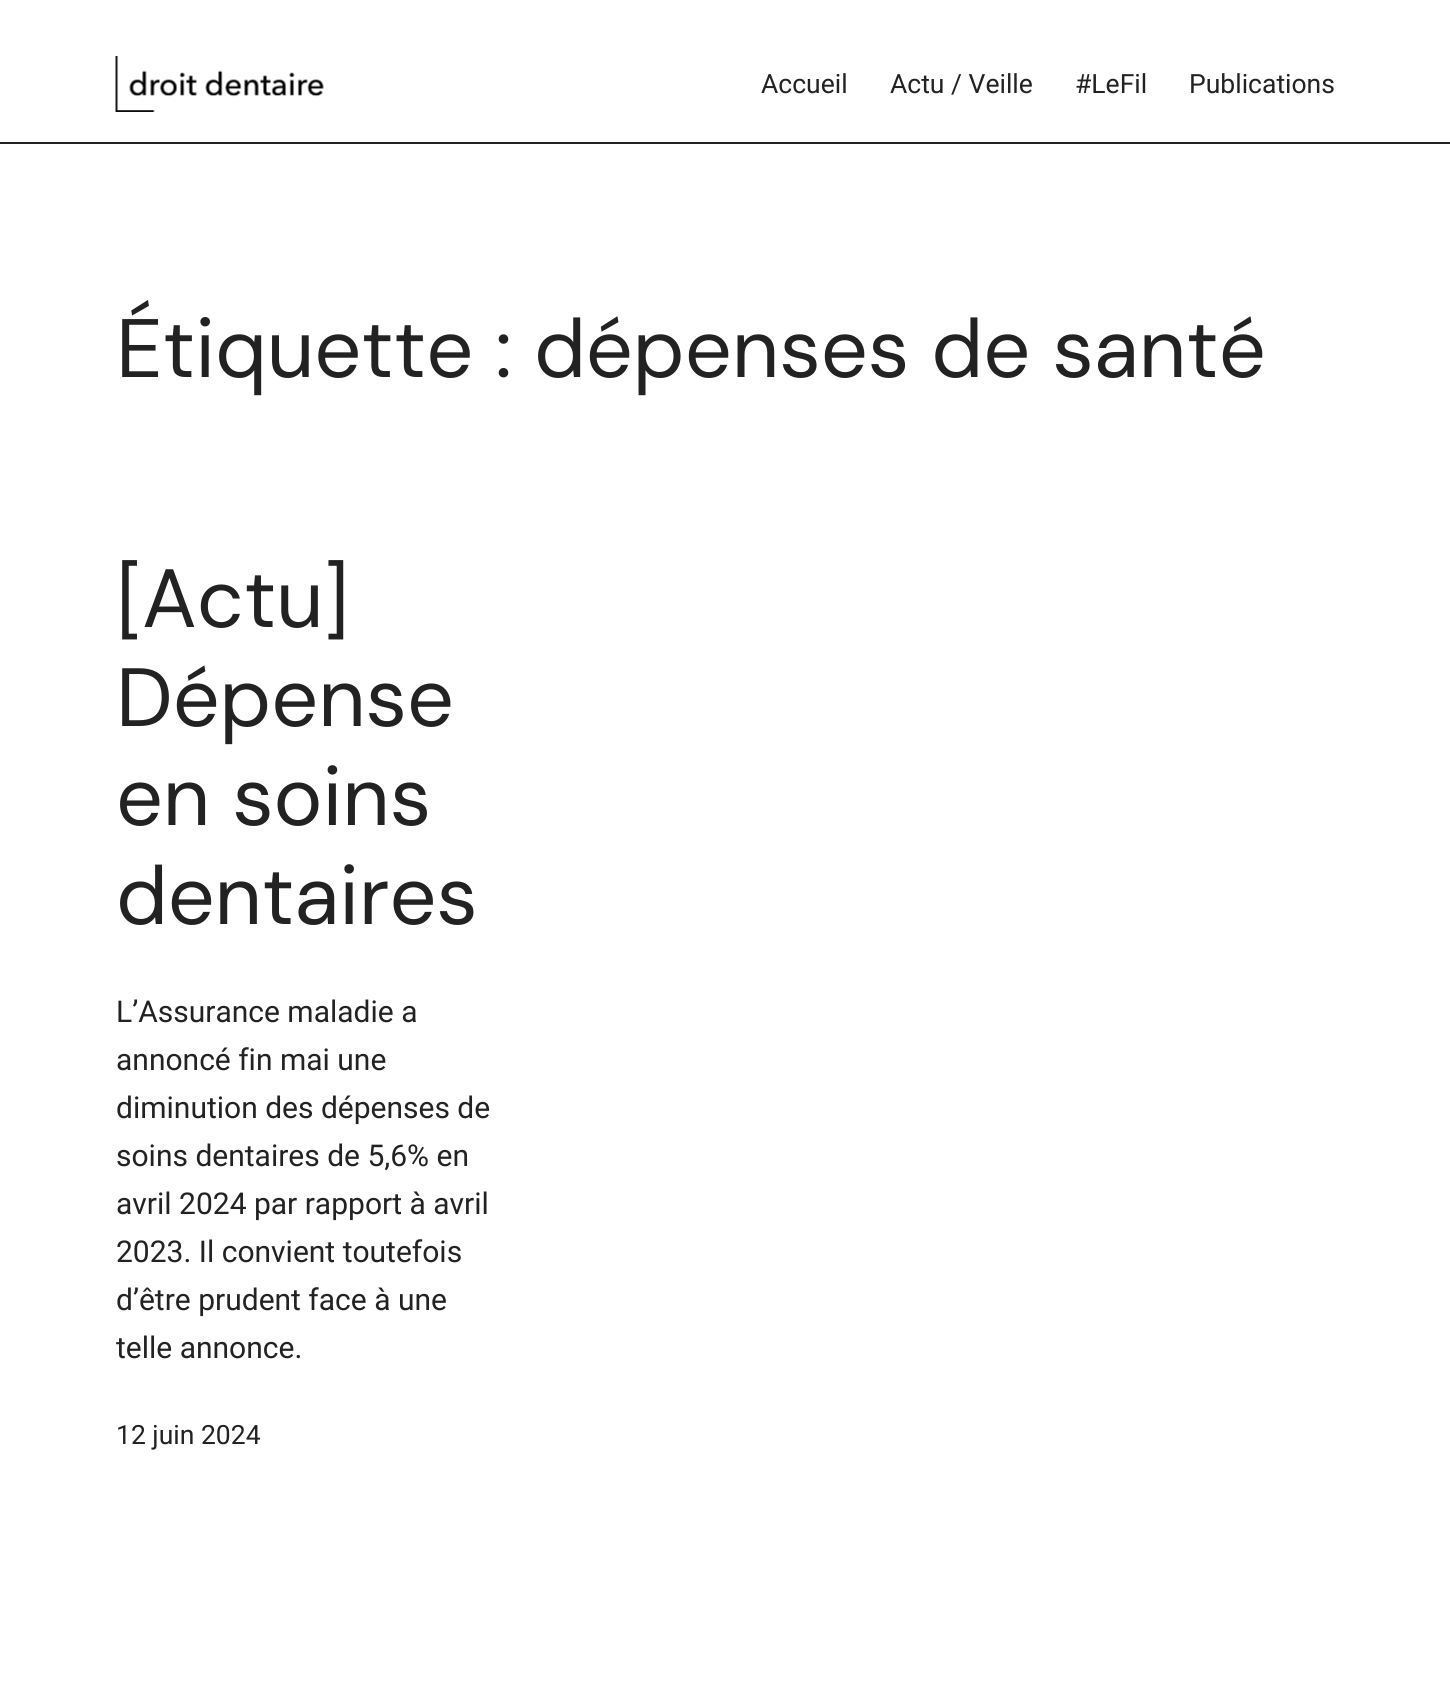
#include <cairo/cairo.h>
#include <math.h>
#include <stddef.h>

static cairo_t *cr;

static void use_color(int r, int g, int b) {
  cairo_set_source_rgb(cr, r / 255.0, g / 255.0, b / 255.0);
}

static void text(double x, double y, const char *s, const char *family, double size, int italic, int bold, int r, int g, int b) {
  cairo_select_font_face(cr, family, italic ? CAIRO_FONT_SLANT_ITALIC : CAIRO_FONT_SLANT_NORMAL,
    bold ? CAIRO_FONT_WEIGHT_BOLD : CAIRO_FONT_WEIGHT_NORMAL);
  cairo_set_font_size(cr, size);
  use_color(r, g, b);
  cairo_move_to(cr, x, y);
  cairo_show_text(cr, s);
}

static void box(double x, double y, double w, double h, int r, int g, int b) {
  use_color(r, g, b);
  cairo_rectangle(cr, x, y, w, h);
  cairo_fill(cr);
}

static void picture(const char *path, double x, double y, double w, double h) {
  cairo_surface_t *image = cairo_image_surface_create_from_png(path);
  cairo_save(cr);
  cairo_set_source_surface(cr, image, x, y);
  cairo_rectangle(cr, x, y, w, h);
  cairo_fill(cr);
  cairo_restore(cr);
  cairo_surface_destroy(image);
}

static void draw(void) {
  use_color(255, 255, 255);
  cairo_paint(cr);
  box(0, 142, 1450, 2, 34, 34, 34);
  picture("img_01.png", 115, 56, 209, 56);
  text(761, 93, "Accueil", "Roboto", 26.5, 0, 0, 34, 34, 34);
  text(890, 93, "Actu / Veille", "Roboto", 26.5, 0, 0, 34, 34, 34);
  text(1075, 93, "#LeFil", "Roboto", 26.5, 0, 0, 34, 34, 34);
  text(1189, 93, "Publications", "Roboto", 26.5, 0, 0, 34, 34, 34);
  text(116, 377, "Étiquette : dépenses de santé", "DM Sans", 82.75, 0, 0, 34, 34, 34);
  text(116, 627, "[Actu]", "DM Sans", 82.5, 0, 0, 34, 34, 34);
  text(116, 726, "Dépense", "DM Sans", 82.5, 0, 0, 34, 34, 34);
  text(116, 825, "en soins", "DM Sans", 82.5, 0, 0, 34, 34, 34);
  text(116, 924, "dentaires", "DM Sans", 82.5, 0, 0, 34, 34, 34);
  text(116, 1022, "L’Assurance maladie a", "Roboto", 30, 0, 0, 34, 34, 34);
  text(116, 1070, "annoncé fin mai une", "Roboto", 30, 0, 0, 34, 34, 34);
  text(116, 1118, "diminution des dépenses de", "Roboto", 30, 0, 0, 34, 34, 34);
  text(116, 1166, "soins dentaires de 5,6% en", "Roboto", 30, 0, 0, 34, 34, 34);
  text(116, 1214, "avril 2024 par rapport à avril", "Roboto", 30, 0, 0, 34, 34, 34);
  text(116, 1262, "2023. Il convient toutefois", "Roboto", 30, 0, 0, 34, 34, 34);
  text(116, 1310, "d’être prudent face à une", "Roboto", 30, 0, 0, 34, 34, 34);
  text(116, 1358, "telle annonce.", "Roboto", 30, 0, 0, 34, 34, 34);
  text(116, 1444, "12 juin 2024", "Roboto", 26.5, 0, 0, 34, 34, 34);
}

int main(void) {
  cairo_surface_t *surface = cairo_image_surface_create(CAIRO_FORMAT_RGB24, 1450, 1702);
  cr = cairo_create(surface);
  cairo_font_options_t *options = cairo_font_options_create();
  cairo_font_options_set_hint_metrics(options, CAIRO_HINT_METRICS_OFF);
  cairo_font_options_set_hint_style(options, CAIRO_HINT_STYLE_NONE);
  cairo_set_font_options(cr, options);
  cairo_set_miter_limit(cr, 4);
  draw();
  cairo_surface_write_to_png(surface, "out.png");
  cairo_font_options_destroy(options);
  cairo_destroy(cr);
  cairo_surface_destroy(surface);
  return 0;
}
